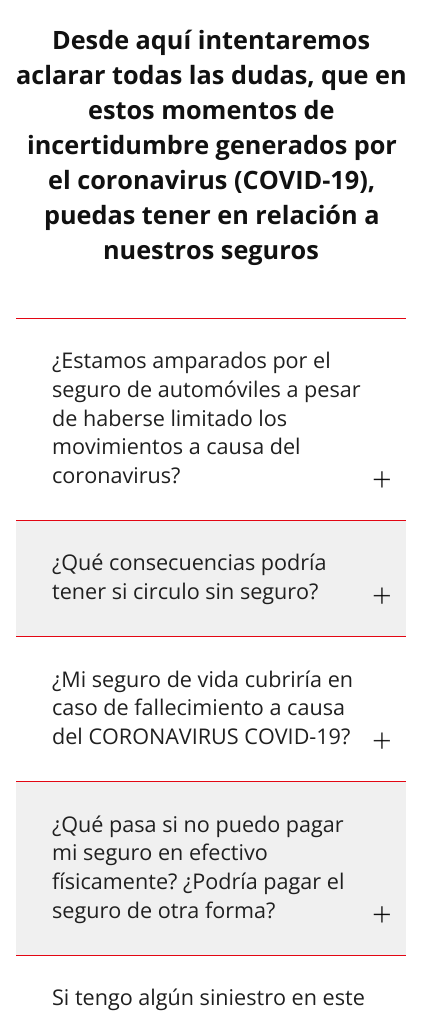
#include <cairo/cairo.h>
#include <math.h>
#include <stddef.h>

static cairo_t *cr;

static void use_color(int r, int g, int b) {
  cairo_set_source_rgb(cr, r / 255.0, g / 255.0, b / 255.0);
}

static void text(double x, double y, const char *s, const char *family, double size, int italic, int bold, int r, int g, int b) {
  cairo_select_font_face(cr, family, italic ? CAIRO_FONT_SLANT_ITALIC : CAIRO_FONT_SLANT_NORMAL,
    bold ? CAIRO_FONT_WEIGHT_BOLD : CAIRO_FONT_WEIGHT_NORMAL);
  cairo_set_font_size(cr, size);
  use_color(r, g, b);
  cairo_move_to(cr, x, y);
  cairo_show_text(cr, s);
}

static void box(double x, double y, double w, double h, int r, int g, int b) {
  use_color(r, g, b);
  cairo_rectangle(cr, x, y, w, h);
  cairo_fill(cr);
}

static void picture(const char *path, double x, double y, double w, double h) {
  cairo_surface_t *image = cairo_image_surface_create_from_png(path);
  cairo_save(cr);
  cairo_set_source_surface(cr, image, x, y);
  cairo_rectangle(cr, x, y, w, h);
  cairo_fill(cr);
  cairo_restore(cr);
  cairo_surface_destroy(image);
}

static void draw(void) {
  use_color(255, 255, 255);
  cairo_paint(cr);
  box(16, 318, 390, 1, 227, 6, 19);
  picture("img_01.png", 373, 471, 17, 17);
  box(16, 521, 390, 115, 240, 240, 240);
  box(16, 520, 390, 1, 227, 6, 19);
  picture("img_02.png", 373, 587, 17, 17);
  box(16, 636, 390, 1, 227, 6, 19);
  picture("img_03.png", 373, 732, 17, 17);
  box(16, 782, 390, 173, 240, 240, 240);
  box(16, 781, 390, 1, 227, 6, 19);
  picture("img_04.png", 373, 906, 17, 17);
  box(16, 955, 390, 1, 227, 6, 19);
  text(52, 49, "Desde aquí intentaremos", "Open Sans", 25.25, 0, 1, 17, 17, 17);
  text(16, 84, "aclarar todas las dudas, que en", "Open Sans", 25.25, 0, 1, 17, 17, 17);
  text(88, 119, "estos momentos de", "Open Sans", 25.25, 0, 1, 17, 17, 17);
  text(27, 154, "incertidumbre generados por", "Open Sans", 25.25, 0, 1, 17, 17, 17);
  text(48, 189, "el coronavirus (COVID-19),", "Open Sans", 25.25, 0, 1, 17, 17, 17);
  text(44, 224, "puedas tener en relación a", "Open Sans", 25.25, 0, 1, 17, 17, 17);
  text(103, 259, "nuestros seguros", "Open Sans", 25.25, 0, 1, 17, 17, 17);
  text(52, 368, "¿Estamos amparados por el", "Open Sans", 21.6, 0, 0, 31, 31, 31);
  text(52, 397, "seguro de automóviles a pesar", "Open Sans", 21.6, 0, 0, 31, 31, 31);
  text(52, 426, "de haberse limitado los", "Open Sans", 21.6, 0, 0, 31, 31, 31);
  text(52, 454, "movimientos a causa del", "Open Sans", 21.6, 0, 0, 31, 31, 31);
  text(52, 483, "coronavirus?", "Open Sans", 21.6, 0, 0, 31, 31, 31);
  text(52, 570, "¿Qué consecuencias podría", "Open Sans", 21.6, 0, 0, 31, 31, 31);
  text(52, 599, "tener si circulo sin seguro?", "Open Sans", 21.6, 0, 0, 31, 31, 31);
  text(52, 687, "¿Mi seguro de vida cubriría en", "Open Sans", 21.6, 0, 0, 31, 31, 31);
  text(52, 715, "caso de fallecimiento a causa", "Open Sans", 21.6, 0, 0, 31, 31, 31);
  text(52, 744, "del CORONAVIRUS COVID-19?", "Open Sans", 21.6, 0, 0, 31, 31, 31);
  text(52, 832, "¿Qué pasa si no puedo pagar", "Open Sans", 21.6, 0, 0, 31, 31, 31);
  text(52, 860, "mi seguro en efectivo", "Open Sans", 21.6, 0, 0, 31, 31, 31);
  text(52, 889, "físicamente? ¿Podría pagar el", "Open Sans", 21.6, 0, 0, 31, 31, 31);
  text(52, 918, "seguro de otra forma?", "Open Sans", 21.6, 0, 0, 31, 31, 31);
  text(52, 1005, "Si tengo algún siniestro en este", "Open Sans", 21.6, 0, 0, 31, 31, 31);
}

int main(void) {
  cairo_surface_t *surface = cairo_image_surface_create(CAIRO_FORMAT_RGB24, 422, 1015);
  cr = cairo_create(surface);
  cairo_font_options_t *options = cairo_font_options_create();
  cairo_font_options_set_hint_metrics(options, CAIRO_HINT_METRICS_OFF);
  cairo_font_options_set_hint_style(options, CAIRO_HINT_STYLE_NONE);
  cairo_set_font_options(cr, options);
  cairo_set_miter_limit(cr, 4);
  draw();
  cairo_surface_write_to_png(surface, "out.png");
  cairo_font_options_destroy(options);
  cairo_destroy(cr);
  cairo_surface_destroy(surface);
  return 0;
}
